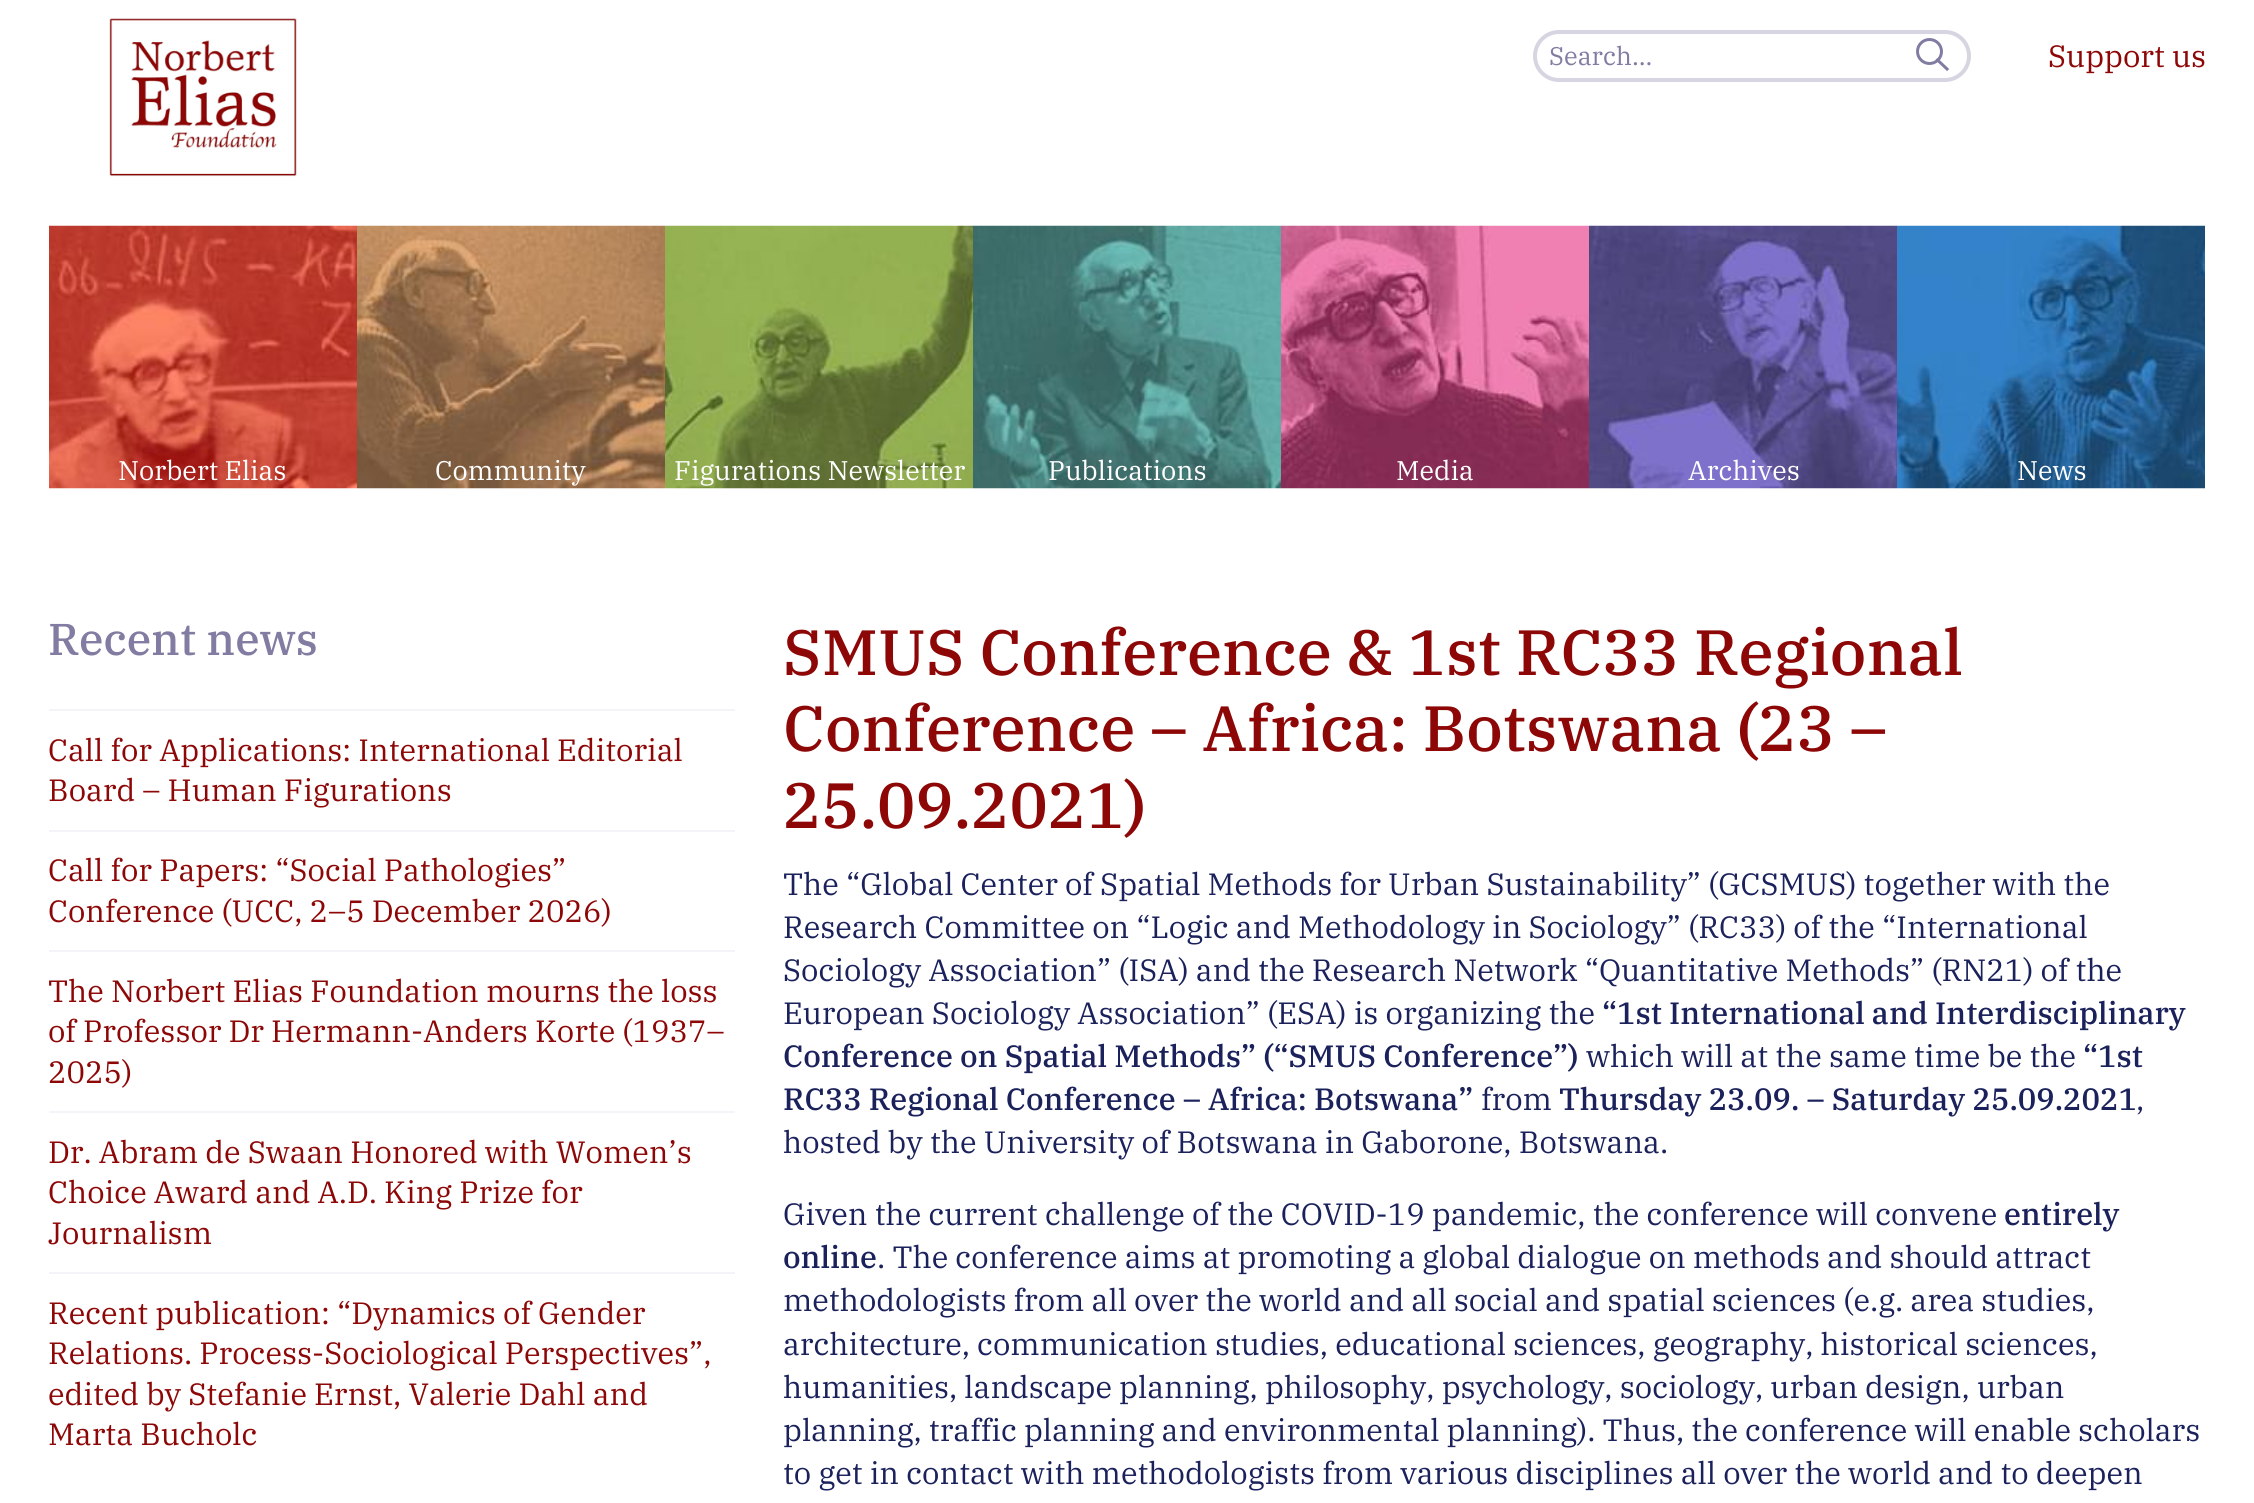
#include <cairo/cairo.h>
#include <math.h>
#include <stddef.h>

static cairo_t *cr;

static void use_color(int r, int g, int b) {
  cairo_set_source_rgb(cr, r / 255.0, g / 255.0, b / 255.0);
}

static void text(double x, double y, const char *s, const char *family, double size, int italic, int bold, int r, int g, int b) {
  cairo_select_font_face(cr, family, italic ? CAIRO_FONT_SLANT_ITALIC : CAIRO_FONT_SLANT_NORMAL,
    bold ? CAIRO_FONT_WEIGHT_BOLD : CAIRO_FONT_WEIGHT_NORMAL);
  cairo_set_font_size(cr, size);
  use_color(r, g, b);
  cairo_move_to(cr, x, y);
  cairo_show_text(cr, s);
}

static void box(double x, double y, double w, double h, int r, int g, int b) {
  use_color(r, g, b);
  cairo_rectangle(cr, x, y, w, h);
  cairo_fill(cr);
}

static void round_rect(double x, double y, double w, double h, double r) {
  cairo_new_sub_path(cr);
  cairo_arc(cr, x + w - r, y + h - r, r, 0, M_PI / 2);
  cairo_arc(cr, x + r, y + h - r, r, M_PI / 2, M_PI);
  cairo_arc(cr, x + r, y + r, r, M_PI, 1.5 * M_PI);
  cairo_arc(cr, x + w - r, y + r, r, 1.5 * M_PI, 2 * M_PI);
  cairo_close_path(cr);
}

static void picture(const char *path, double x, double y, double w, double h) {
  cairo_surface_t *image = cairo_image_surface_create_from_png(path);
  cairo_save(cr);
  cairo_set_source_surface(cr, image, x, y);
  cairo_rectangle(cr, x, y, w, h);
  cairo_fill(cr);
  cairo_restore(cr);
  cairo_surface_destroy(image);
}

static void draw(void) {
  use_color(255, 255, 255);
  cairo_paint(cr);
  picture("img_01.png", 109, 17, 189, 160);
  round_rect(1535, 32, 434, 48, 24);
  use_color(215, 213, 226);
  cairo_set_line_width(cr, 4);
  cairo_stroke(cr);
  cairo_new_path(cr);
  cairo_move_to(cr, 1947, 69);
  cairo_line_to(cr, 1937.5, 60);
  use_color(129, 124, 162);
  cairo_set_line_width(cr, 3);
  cairo_set_line_cap(cr, CAIRO_LINE_CAP_SQUARE);
  cairo_stroke(cr);
  cairo_arc(cr, 1929.5, 51.5, 12, 0, 2 * M_PI);
  cairo_set_line_cap(cr, CAIRO_LINE_CAP_BUTT);
  cairo_stroke(cr);
  picture("img_02.png", 49, 225, 308, 264);
  picture("img_03.png", 357, 225, 308, 264);
  picture("img_04.png", 665, 225, 308, 264);
  picture("img_05.png", 973, 225, 308, 264);
  picture("img_06.png", 1281, 225, 308, 264);
  picture("img_07.png", 1589, 225, 308, 264);
  picture("img_08.png", 1897, 225, 308, 264);
  box(49, 709, 686, 2, 244, 243, 247);
  box(49, 830, 686, 2, 244, 243, 247);
  box(49, 950, 686, 2, 244, 243, 247);
  box(49, 1111, 686, 2, 244, 243, 247);
  box(49, 1272, 686, 2, 244, 243, 247);
  text(1549, 65, "Search...", "IBM Plex Serif", 25.5, 0, 0, 129, 124, 162);
  text(2048, 67, "Support us", "IBM Plex Serif", 30.8, 0, 0, 141, 7, 7);
  text(118, 480, "Norbert Elias", "IBM Plex Serif", 27, 0, 0, 255, 255, 255);
  text(435, 480, "Community", "IBM Plex Serif", 27, 0, 0, 255, 255, 255);
  text(674, 480, "Figurations Newsletter", "IBM Plex Serif", 27, 0, 0, 255, 255, 255);
  text(1048, 480, "Publications", "IBM Plex Serif", 27, 0, 0, 255, 255, 255);
  text(1396, 480, "Media", "IBM Plex Serif", 27, 0, 0, 255, 255, 255);
  text(1688, 480, "Archives", "IBM Plex Serif", 27, 0, 0, 255, 255, 255);
  text(2017, 480, "News", "IBM Plex Serif", 27, 0, 0, 255, 255, 255);
  text(48, 655, "Recent news", "IBM Plex Serif Medium", 44.5, 0, 0, 129, 124, 162);
  text(48, 761, "Call for Applications: International Editorial", "IBM Plex Serif", 30.8, 0, 0, 141, 7, 7);
  text(48, 801, "Board – Human Figurations", "IBM Plex Serif", 30.8, 0, 0, 141, 7, 7);
  text(48, 881, "Call for Papers: “Social Pathologies”", "IBM Plex Serif", 30.8, 0, 0, 141, 7, 7);
  text(48, 922, "Conference (UCC, 2–5 December 2026)", "IBM Plex Serif", 30.8, 0, 0, 141, 7, 7);
  text(48, 1002, "The Norbert Elias Foundation mourns the loss", "IBM Plex Serif", 30.8, 0, 0, 141, 7, 7);
  text(48, 1042, "of Professor Dr Hermann-Anders Korte (1937–", "IBM Plex Serif", 30.8, 0, 0, 141, 7, 7);
  text(48, 1083, "2025)", "IBM Plex Serif", 30.8, 0, 0, 141, 7, 7);
  text(48, 1163, "Dr. Abram de Swaan Honored with Women’s", "IBM Plex Serif", 30.8, 0, 0, 141, 7, 7);
  text(48, 1203, "Choice Award and A.D. King Prize for", "IBM Plex Serif", 30.8, 0, 0, 141, 7, 7);
  text(48, 1244, "Journalism", "IBM Plex Serif", 30.8, 0, 0, 141, 7, 7);
  text(48, 1324, "Recent publication: “Dynamics of Gender", "IBM Plex Serif", 30.8, 0, 0, 141, 7, 7);
  text(48, 1364, "Relations. Process-Sociological Perspectives”,", "IBM Plex Serif", 30.8, 0, 0, 141, 7, 7);
  text(48, 1405, "edited by Stefanie Ernst, Valerie Dahl and", "IBM Plex Serif", 30.8, 0, 0, 141, 7, 7);
  text(48, 1445, "Marta Bucholc", "IBM Plex Serif", 30.8, 0, 0, 141, 7, 7);
  text(783, 675, "SMUS Conference & 1st RC33 Regional", "IBM Plex Serif Medium", 63.9, 0, 0, 141, 7, 7);
  text(783, 751, "Conference – Africa: Botswana (23 –", "IBM Plex Serif Medium", 63.9, 0, 0, 141, 7, 7);
  text(783, 828, "25.09.2021)", "IBM Plex Serif Medium", 63.9, 0, 0, 141, 7, 7);
  text(783, 895, "The “Global Center of Spatial Methods for Urban Sustainability” (GCSMUS) together with the", "IBM Plex Serif", 30.8, 0, 0, 26, 33, 91);
  text(783, 938, "Research Committee on “Logic and Methodology in Sociology” (RC33) of the “International", "IBM Plex Serif", 30.8, 0, 0, 26, 33, 91);
  text(783, 981, "Sociology Association” (ISA) and the Research Network “Quantitative Methods” (RN21) of the", "IBM Plex Serif", 30.8, 0, 0, 26, 33, 91);
  text(783, 1024, "European Sociology Association” (ESA) is organizing the", "IBM Plex Serif", 30.8, 0, 0, 26, 33, 91);
  text(1602, 1024, "“1st International and Interdisciplinary", "IBM Plex Serif Medium", 30.8, 0, 0, 26, 33, 91);
  text(783, 1067, "Conference on Spatial Methods” (“SMUS Conference”)", "IBM Plex Serif Medium", 30.8, 0, 0, 26, 33, 91);
  text(1586, 1067, "which will at the same time be the", "IBM Plex Serif", 30.8, 0, 0, 26, 33, 91);
  text(2083, 1067, "“1st", "IBM Plex Serif Medium", 30.8, 0, 0, 26, 33, 91);
  text(783, 1110, "RC33 Regional Conference – Africa: Botswana”", "IBM Plex Serif Medium", 30.8, 0, 0, 26, 33, 91);
  text(1481, 1110, "from", "IBM Plex Serif", 30.8, 0, 0, 26, 33, 91);
  text(1559, 1110, "Thursday 23.09. – Saturday 25.09.2021", "IBM Plex Serif Medium", 30.8, 0, 0, 26, 33, 91);
  text(2136, 1110, ",", "IBM Plex Serif", 30.8, 0, 0, 26, 33, 91);
  text(783, 1153, "hosted by the University of Botswana in Gaborone, Botswana.", "IBM Plex Serif", 30.8, 0, 0, 26, 33, 91);
  text(783, 1225, "Given the current challenge of the COVID-19 pandemic, the conference will convene", "IBM Plex Serif", 30.8, 0, 0, 26, 33, 91);
  text(2004, 1225, "entirely", "IBM Plex Serif Medium", 30.8, 0, 0, 26, 33, 91);
  text(783, 1268, "online", "IBM Plex Serif Medium", 30.8, 0, 0, 26, 33, 91);
  text(877, 1268, ". The conference aims at promoting a global dialogue on methods and should attract", "IBM Plex Serif", 30.8, 0, 0, 26, 33, 91);
  text(783, 1311, "methodologists from all over the world and all social and spatial sciences (e.g. area studies,", "IBM Plex Serif", 30.8, 0, 0, 26, 33, 91);
  text(783, 1355, "architecture, communication studies, educational sciences, geography, historical sciences,", "IBM Plex Serif", 30.8, 0, 0, 26, 33, 91);
  text(783, 1398, "humanities, landscape planning, philosophy, psychology, sociology, urban design, urban", "IBM Plex Serif", 30.8, 0, 0, 26, 33, 91);
  text(783, 1441, "planning, traffic planning and environmental planning). Thus, the conference will enable scholars", "IBM Plex Serif", 30.8, 0, 0, 26, 33, 91);
  text(783, 1484, "to get in contact with methodologists from various disciplines all over the world and to deepen", "IBM Plex Serif", 30.8, 0, 0, 26, 33, 91);
}

int main(void) {
  cairo_surface_t *surface = cairo_image_surface_create(CAIRO_FORMAT_RGB24, 2254, 1503);
  cr = cairo_create(surface);
  cairo_font_options_t *options = cairo_font_options_create();
  cairo_font_options_set_hint_metrics(options, CAIRO_HINT_METRICS_OFF);
  cairo_font_options_set_hint_style(options, CAIRO_HINT_STYLE_NONE);
  cairo_set_font_options(cr, options);
  cairo_set_miter_limit(cr, 4);
  draw();
  cairo_surface_write_to_png(surface, "out.png");
  cairo_font_options_destroy(options);
  cairo_destroy(cr);
  cairo_surface_destroy(surface);
  return 0;
}
